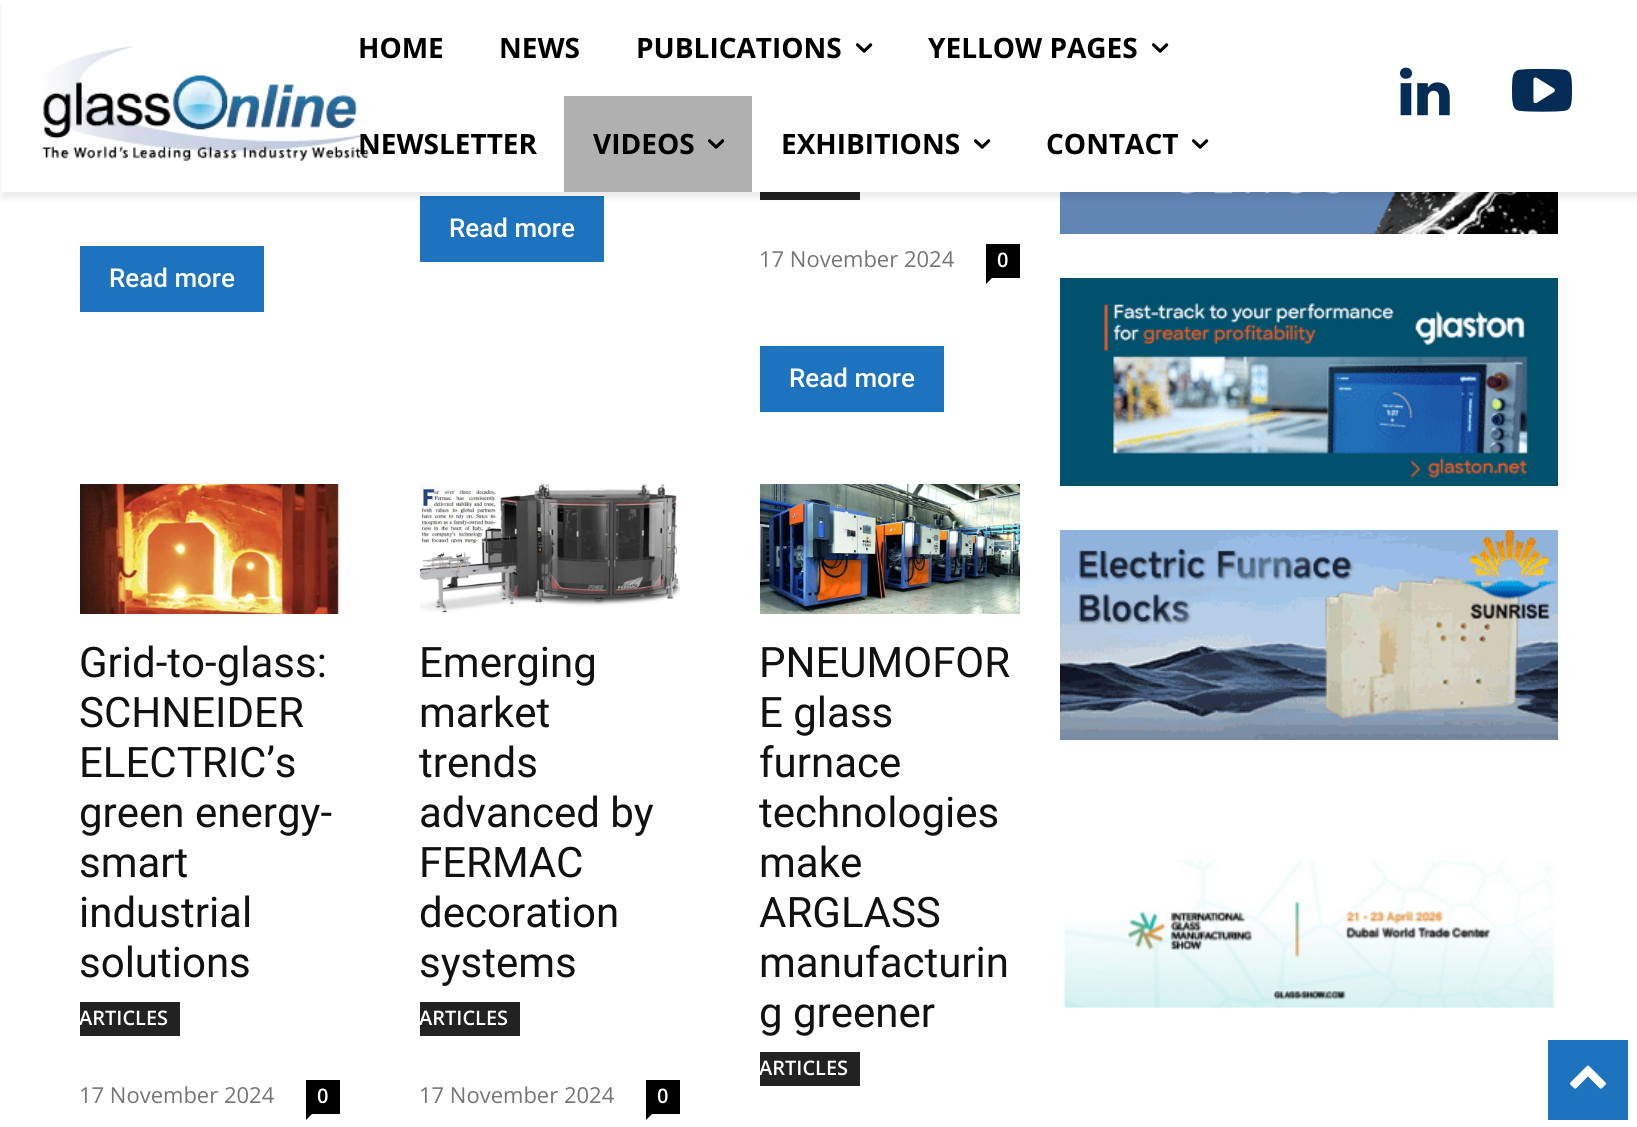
#include <cairo/cairo.h>
#include <math.h>
#include <stddef.h>

static cairo_t *cr;

static void use_color(int r, int g, int b) {
  cairo_set_source_rgb(cr, r / 255.0, g / 255.0, b / 255.0);
}

static void text(double x, double y, const char *s, const char *family, double size, int italic, int bold, int r, int g, int b) {
  cairo_select_font_face(cr, family, italic ? CAIRO_FONT_SLANT_ITALIC : CAIRO_FONT_SLANT_NORMAL,
    bold ? CAIRO_FONT_WEIGHT_BOLD : CAIRO_FONT_WEIGHT_NORMAL);
  cairo_set_font_size(cr, size);
  use_color(r, g, b);
  cairo_move_to(cr, x, y);
  cairo_show_text(cr, s);
}

static void box(double x, double y, double w, double h, int r, int g, int b) {
  use_color(r, g, b);
  cairo_rectangle(cr, x, y, w, h);
  cairo_fill(cr);
}

static void round_rect(double x, double y, double w, double h, double r) {
  cairo_new_sub_path(cr);
  cairo_arc(cr, x + w - r, y + h - r, r, 0, M_PI / 2);
  cairo_arc(cr, x + r, y + h - r, r, M_PI / 2, M_PI);
  cairo_arc(cr, x + r, y + r, r, M_PI, 1.5 * M_PI);
  cairo_arc(cr, x + w - r, y + r, r, 1.5 * M_PI, 2 * M_PI);
  cairo_close_path(cr);
}

static void shadow(double x, double y, double w, double h, double r, double blur, double alpha) {
  cairo_push_group_with_content(cr, CAIRO_CONTENT_ALPHA);
  cairo_set_operator(cr, CAIRO_OPERATOR_SOURCE);
  for (int i = 15; i >= -15 && fmin(w, h) + blur * i / 3 > 0; i -= 2) {
    double e = blur * i / 6;
    cairo_set_source_rgba(cr, 0, 0, 0, alpha * erfc((i - 1) / 8.5) / 2);
    round_rect(x - e, y - e, w + 2 * e, h + 2 * e, fmax(0, fmin(r + e + blur * .6, fmin(w, h) / 2 + e)));
    cairo_fill(cr);
  }
  cairo_pattern_t *soft = cairo_pop_group(cr);
  cairo_mask(cr, soft);
  cairo_pattern_destroy(soft);
}

static void picture(const char *path, double x, double y, double w, double h) {
  cairo_surface_t *image = cairo_image_surface_create_from_png(path);
  cairo_save(cr);
  cairo_set_source_surface(cr, image, x, y);
  cairo_rectangle(cr, x, y, w, h);
  cairo_fill(cr);
  cairo_restore(cr);
  cairo_surface_destroy(image);
}

static void draw(void) {
  use_color(255, 255, 255);
  cairo_paint(cr);
  picture("img_04.png", 1400, 67, 50, 49);
  picture("img_05.png", 1511, 68, 61, 44);
  box(420, 196, 184, 66, 30, 115, 190);
  box(760, 192, 100, 8, 34, 34, 34);
  picture("img_09.png", 1060, 192, 498, 42);
  cairo_save(cr);
  cairo_set_fill_rule(cr, CAIRO_FILL_RULE_EVEN_ODD);
  cairo_new_path(cr);
  cairo_move_to(cr, 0, 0);
  cairo_line_to(cr, 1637, 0);
  cairo_line_to(cr, 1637, 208);
  cairo_line_to(cr, 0, 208);
  cairo_close_path(cr);
  cairo_move_to(cr, 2, 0);
  cairo_line_to(cr, 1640, 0);
  cairo_line_to(cr, 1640, 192);
  cairo_line_to(cr, 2, 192);
  cairo_close_path(cr);
  cairo_clip(cr);
  use_color(0, 0, 0);
  shadow(2, 6, 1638, 192, 0, 3, 0.08);
  cairo_restore(cr);
  picture("img_01.png", 41, 46, 328, 115);
  picture("img_02.png", 856, 43, 17, 10);
  picture("img_02.png", 1152, 43, 17, 10);
  box(564, 96, 188, 96, 176, 176, 176);
  picture("img_03.png", 708, 139, 17, 10);
  picture("img_02.png", 974, 139, 17, 10);
  picture("img_02.png", 1192, 139, 17, 10);
  box(80, 246, 184, 66, 30, 115, 190);
  box(986, 244, 34, 34, 0, 0, 0);
  cairo_new_path(cr);
  cairo_move_to(cr, 986, 278);
  cairo_line_to(cr, 992, 278);
  cairo_line_to(cr, 986, 284);
  cairo_close_path(cr);
  cairo_fill(cr);
  box(760, 346, 184, 66, 30, 115, 190);
  picture("img_06.png", 80, 484, 260, 130);
  box(80, 1002, 100, 34, 34, 34, 34);
  box(306, 1080, 34, 34, 0, 0, 0);
  cairo_new_path(cr);
  cairo_move_to(cr, 306, 1114);
  cairo_line_to(cr, 312, 1114);
  cairo_line_to(cr, 306, 1120);
  cairo_close_path(cr);
  cairo_fill(cr);
  picture("img_07.png", 420, 484, 260, 129);
  box(420, 1002, 100, 34, 34, 34, 34);
  box(646, 1080, 34, 34, 0, 0, 0);
  cairo_new_path(cr);
  cairo_move_to(cr, 646, 1114);
  cairo_line_to(cr, 652, 1114);
  cairo_line_to(cr, 646, 1120);
  cairo_close_path(cr);
  cairo_fill(cr);
  picture("img_08.png", 760, 484, 260, 130);
  box(760, 1052, 100, 34, 34, 34, 34);
  picture("img_10.png", 1060, 278, 498, 208);
  picture("img_11.png", 1060, 530, 498, 210);
  picture("img_12.png", 1064, 859, 491, 149);
  box(1548, 1040, 80, 80, 30, 115, 190);
  picture("img_13.png", 1570, 1065, 36, 24);
  text(358, 58, "HOME", "Open Sans", 28, 0, 1, 0, 0, 0);
  text(499, 58, "NEWS", "Open Sans", 28, 0, 1, 0, 0, 0);
  text(636, 58, "PUBLICATIONS", "Open Sans", 28, 0, 1, 0, 0, 0);
  text(928, 58, "YELLOW PAGES", "Open Sans", 28, 0, 1, 0, 0, 0);
  text(358, 154, "NEWSLETTER", "Open Sans", 28, 0, 1, 0, 0, 0);
  text(593, 154, "VIDEOS", "Open Sans", 28, 0, 1, 0, 0, 0);
  text(781, 154, "EXHIBITIONS", "Open Sans", 28, 0, 1, 0, 0, 0);
  text(1046, 154, "CONTACT", "Open Sans", 28, 0, 1, 0, 0, 0);
  text(449, 237, "Read more", "Roboto Medium", 26, 0, 0, 255, 255, 255);
  text(109, 287, "Read more", "Roboto Medium", 26, 0, 0, 255, 255, 255);
  text(759, 267, "17 November 2024", "Open Sans", 22, 0, 0, 118, 118, 118);
  text(997, 267, "0", "Open Sans SemiBold", 20, 0, 0, 255, 255, 255);
  text(789, 387, "Read more", "Roboto Medium", 26, 0, 0, 255, 255, 255);
  text(79, 677, "Grid-to-glass:", "Roboto", 42, 0, 0, 17, 17, 17);
  text(79, 727, "SCHNEIDER", "Roboto", 42, 0, 0, 17, 17, 17);
  text(79, 777, "ELECTRIC’s", "Roboto", 42, 0, 0, 17, 17, 17);
  text(79, 827, "green energy-", "Roboto", 42, 0, 0, 17, 17, 17);
  text(79, 877, "smart", "Roboto", 42, 0, 0, 17, 17, 17);
  text(79, 927, "industrial", "Roboto", 42, 0, 0, 17, 17, 17);
  text(79, 977, "solutions", "Roboto", 42, 0, 0, 17, 17, 17);
  text(79, 1025, "ARTICLES", "Open Sans SemiBold", 20, 0, 0, 255, 255, 255);
  text(79, 1103, "17 November 2024", "Open Sans", 22, 0, 0, 118, 118, 118);
  text(317, 1103, "0", "Open Sans SemiBold", 20, 0, 0, 255, 255, 255);
  text(419, 677, "Emerging", "Roboto", 42, 0, 0, 17, 17, 17);
  text(419, 727, "market", "Roboto", 42, 0, 0, 17, 17, 17);
  text(419, 777, "trends", "Roboto", 42, 0, 0, 17, 17, 17);
  text(419, 827, "advanced by", "Roboto", 42, 0, 0, 17, 17, 17);
  text(419, 877, "FERMAC", "Roboto", 42, 0, 0, 17, 17, 17);
  text(419, 927, "decoration", "Roboto", 42, 0, 0, 17, 17, 17);
  text(419, 977, "systems", "Roboto", 42, 0, 0, 17, 17, 17);
  text(419, 1025, "ARTICLES", "Open Sans SemiBold", 20, 0, 0, 255, 255, 255);
  text(419, 1103, "17 November 2024", "Open Sans", 22, 0, 0, 118, 118, 118);
  text(657, 1103, "0", "Open Sans SemiBold", 20, 0, 0, 255, 255, 255);
  text(759, 677, "PNEUMOFOR", "Roboto", 42, 0, 0, 17, 17, 17);
  text(759, 727, "E glass", "Roboto", 42, 0, 0, 17, 17, 17);
  text(759, 777, "furnace", "Roboto", 42, 0, 0, 17, 17, 17);
  text(759, 827, "technologies", "Roboto", 42, 0, 0, 17, 17, 17);
  text(759, 877, "make", "Roboto", 42, 0, 0, 17, 17, 17);
  text(759, 927, "ARGLASS", "Roboto", 42, 0, 0, 17, 17, 17);
  text(759, 977, "manufacturin", "Roboto", 42, 0, 0, 17, 17, 17);
  text(759, 1027, "g greener", "Roboto", 42, 0, 0, 17, 17, 17);
  text(759, 1075, "ARTICLES", "Open Sans SemiBold", 20, 0, 0, 255, 255, 255);
}

int main(void) {
  cairo_surface_t *surface = cairo_image_surface_create(CAIRO_FORMAT_RGB24, 1637, 1127);
  cr = cairo_create(surface);
  cairo_font_options_t *options = cairo_font_options_create();
  cairo_font_options_set_hint_metrics(options, CAIRO_HINT_METRICS_OFF);
  cairo_font_options_set_hint_style(options, CAIRO_HINT_STYLE_NONE);
  cairo_set_font_options(cr, options);
  cairo_set_miter_limit(cr, 4);
  draw();
  cairo_surface_write_to_png(surface, "out.png");
  cairo_font_options_destroy(options);
  cairo_destroy(cr);
  cairo_surface_destroy(surface);
  return 0;
}
